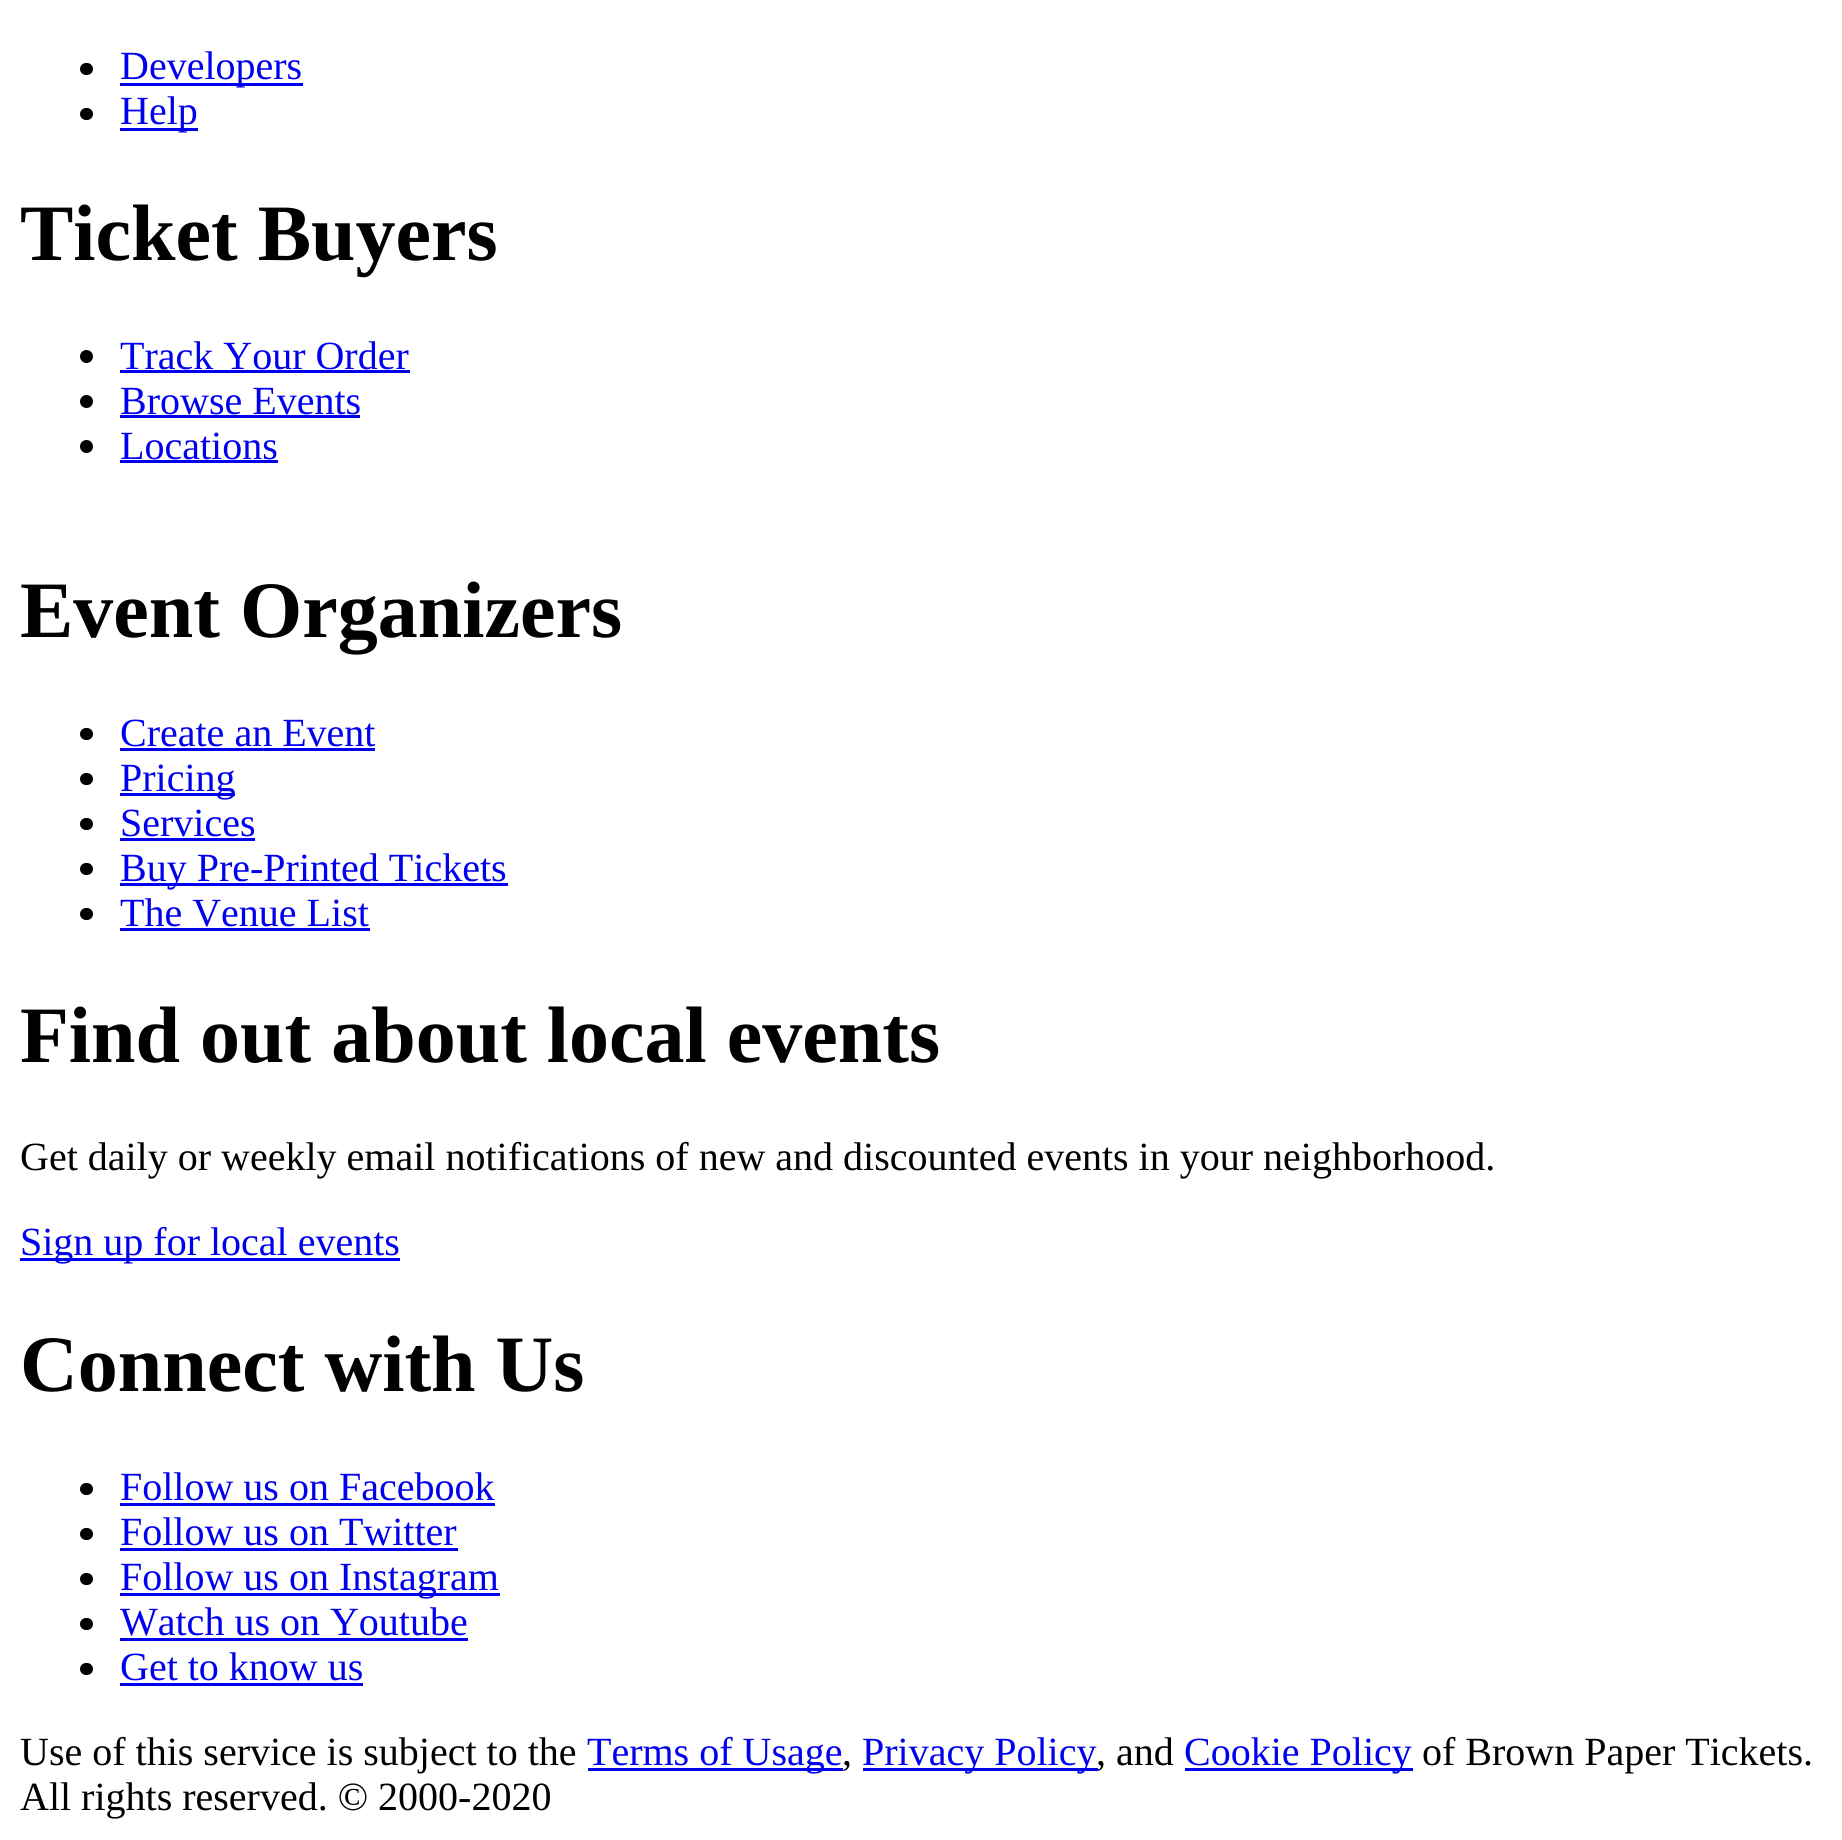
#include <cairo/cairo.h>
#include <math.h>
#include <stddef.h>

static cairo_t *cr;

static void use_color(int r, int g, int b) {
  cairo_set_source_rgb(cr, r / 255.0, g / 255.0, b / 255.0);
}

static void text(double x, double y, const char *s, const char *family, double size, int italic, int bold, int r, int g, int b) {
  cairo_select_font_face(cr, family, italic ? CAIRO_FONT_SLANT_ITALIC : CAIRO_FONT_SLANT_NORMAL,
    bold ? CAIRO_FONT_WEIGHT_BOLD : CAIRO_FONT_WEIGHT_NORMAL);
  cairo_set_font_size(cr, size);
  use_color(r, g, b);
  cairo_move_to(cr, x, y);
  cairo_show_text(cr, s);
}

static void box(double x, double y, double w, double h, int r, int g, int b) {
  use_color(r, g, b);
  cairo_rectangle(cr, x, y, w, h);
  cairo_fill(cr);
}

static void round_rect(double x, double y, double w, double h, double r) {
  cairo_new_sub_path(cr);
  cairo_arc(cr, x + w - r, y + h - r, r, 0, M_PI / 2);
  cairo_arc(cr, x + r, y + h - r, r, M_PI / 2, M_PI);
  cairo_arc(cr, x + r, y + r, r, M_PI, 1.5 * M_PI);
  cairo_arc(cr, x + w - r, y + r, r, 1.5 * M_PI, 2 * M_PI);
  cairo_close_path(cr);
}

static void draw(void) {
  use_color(255, 255, 255);
  cairo_paint(cr);
  use_color(0, 0, 0);
  round_rect(80, 63, 13, 12, 6);
  cairo_fill(cr);
  box(120, 83, 183, 3, 0, 0, 238);
  use_color(0, 0, 0);
  round_rect(80, 108, 13, 12, 6);
  cairo_fill(cr);
  box(120, 128, 78, 3, 0, 0, 238);
  use_color(0, 0, 0);
  cairo_arc(cr, 86.5, 356.5, 6.5, 0, 2 * M_PI);
  cairo_fill(cr);
  box(120, 370, 290, 3, 0, 0, 238);
  use_color(0, 0, 0);
  cairo_arc(cr, 86.5, 401.5, 6.5, 0, 2 * M_PI);
  cairo_fill(cr);
  box(120, 415, 240, 3, 0, 0, 238);
  use_color(0, 0, 0);
  cairo_arc(cr, 86.5, 446.5, 6.5, 0, 2 * M_PI);
  cairo_fill(cr);
  box(120, 460, 158, 3, 0, 0, 238);
  use_color(0, 0, 0);
  round_rect(80, 728, 13, 12, 6);
  cairo_fill(cr);
  box(120, 748, 255, 3, 0, 0, 238);
  use_color(0, 0, 0);
  round_rect(80, 773, 13, 12, 6);
  cairo_fill(cr);
  box(120, 793, 115, 3, 0, 0, 238);
  use_color(0, 0, 0);
  round_rect(80, 818, 13, 12, 6);
  cairo_fill(cr);
  box(120, 838, 135, 3, 0, 0, 238);
  use_color(0, 0, 0);
  round_rect(80, 863, 13, 12, 6);
  cairo_fill(cr);
  box(120, 883, 388, 3, 0, 0, 238);
  use_color(0, 0, 0);
  round_rect(80, 908, 13, 12, 6);
  cairo_fill(cr);
  box(120, 928, 250, 3, 0, 0, 238);
  box(20, 1258, 380, 3, 0, 0, 238);
  use_color(0, 0, 0);
  round_rect(80, 1483, 13, 12, 6);
  cairo_fill(cr);
  box(120, 1503, 375, 3, 0, 0, 238);
  use_color(0, 0, 0);
  round_rect(80, 1528, 13, 12, 6);
  cairo_fill(cr);
  box(120, 1548, 338, 3, 0, 0, 238);
  use_color(0, 0, 0);
  round_rect(80, 1573, 13, 12, 6);
  cairo_fill(cr);
  box(120, 1593, 380, 3, 0, 0, 238);
  use_color(0, 0, 0);
  round_rect(80, 1618, 13, 12, 6);
  cairo_fill(cr);
  box(120, 1638, 348, 3, 0, 0, 238);
  use_color(0, 0, 0);
  round_rect(80, 1663, 13, 12, 6);
  cairo_fill(cr);
  box(120, 1683, 243, 3, 0, 0, 238);
  box(588, 1768, 255, 3, 0, 0, 238);
  box(863, 1768, 235, 3, 0, 0, 238);
  box(1185, 1768, 228, 3, 0, 0, 238);
  text(120, 79, "Developers", "Liberation Serif", 40, 0, 0, 0, 0, 238);
  text(120, 124, "Help", "Liberation Serif", 40, 0, 0, 0, 0, 238);
  text(20, 260, "Ticket Buyers", "Liberation Serif", 80, 0, 1, 0, 0, 0);
  text(120, 369, "Track Your Order", "Liberation Serif", 40, 0, 0, 0, 0, 238);
  text(120, 414, "Browse Events", "Liberation Serif", 40, 0, 0, 0, 0, 238);
  text(120, 459, "Locations", "Liberation Serif", 40, 0, 0, 0, 0, 238);
  text(20, 637, "Event Organizers", "Liberation Serif", 80, 0, 1, 0, 0, 0);
  text(120, 746, "Create an Event", "Liberation Serif", 40, 0, 0, 0, 0, 238);
  text(120, 791, "Pricing", "Liberation Serif", 40, 0, 0, 0, 0, 238);
  text(120, 836, "Services", "Liberation Serif", 40, 0, 0, 0, 0, 238);
  text(120, 881, "Buy Pre-Printed Tickets", "Liberation Serif", 40, 0, 0, 0, 0, 238);
  text(120, 926, "The Venue List", "Liberation Serif", 40, 0, 0, 0, 0, 238);
  text(20, 1062, "Find out about local events", "Liberation Serif", 80, 0, 1, 0, 0, 0);
  text(20, 1170, "Get daily or weekly email notifications of new and discounted events in your neighborhood.", "Liberation Serif", 40, 0, 0, 0, 0, 0);
  text(20, 1255, "Sign up for local events", "Liberation Serif", 40, 0, 0, 0, 0, 238);
  text(20, 1391, "Connect with Us", "Liberation Serif", 80, 0, 1, 0, 0, 0);
  text(120, 1500, "Follow us on Facebook", "Liberation Serif", 40, 0, 0, 0, 0, 238);
  text(120, 1545, "Follow us on Twitter", "Liberation Serif", 40, 0, 0, 0, 0, 238);
  text(120, 1590, "Follow us on Instagram", "Liberation Serif", 40, 0, 0, 0, 0, 238);
  text(120, 1635, "Watch us on Youtube", "Liberation Serif", 40, 0, 0, 0, 0, 238);
  text(120, 1680, "Get to know us", "Liberation Serif", 40, 0, 0, 0, 0, 238);
  text(20, 1765, "Use of this service is subject to the", "Liberation Serif", 40, 0, 0, 0, 0, 0);
  text(587, 1765, "Terms of Usage", "Liberation Serif", 40, 0, 0, 0, 0, 238);
  text(842, 1765, ",", "Liberation Serif", 40, 0, 0, 0, 0, 0);
  text(862, 1765, "Privacy Policy", "Liberation Serif", 40, 0, 0, 0, 0, 238);
  text(1096, 1765, ", and", "Liberation Serif", 40, 0, 0, 0, 0, 0);
  text(1184, 1765, "Cookie Policy", "Liberation Serif", 40, 0, 0, 0, 0, 238);
  text(1422, 1765, "of Brown Paper Tickets.", "Liberation Serif", 40, 0, 0, 0, 0, 0);
  text(20, 1810, "All rights reserved. © 2000-2020", "Liberation Serif", 40, 0, 0, 0, 0, 0);
}

int main(void) {
  cairo_surface_t *surface = cairo_image_surface_create(CAIRO_FORMAT_RGB24, 1842, 1840);
  cr = cairo_create(surface);
  cairo_font_options_t *options = cairo_font_options_create();
  cairo_font_options_set_hint_metrics(options, CAIRO_HINT_METRICS_OFF);
  cairo_font_options_set_hint_style(options, CAIRO_HINT_STYLE_NONE);
  cairo_set_font_options(cr, options);
  cairo_set_miter_limit(cr, 4);
  draw();
  cairo_surface_write_to_png(surface, "out.png");
  cairo_font_options_destroy(options);
  cairo_destroy(cr);
  cairo_surface_destroy(surface);
  return 0;
}
